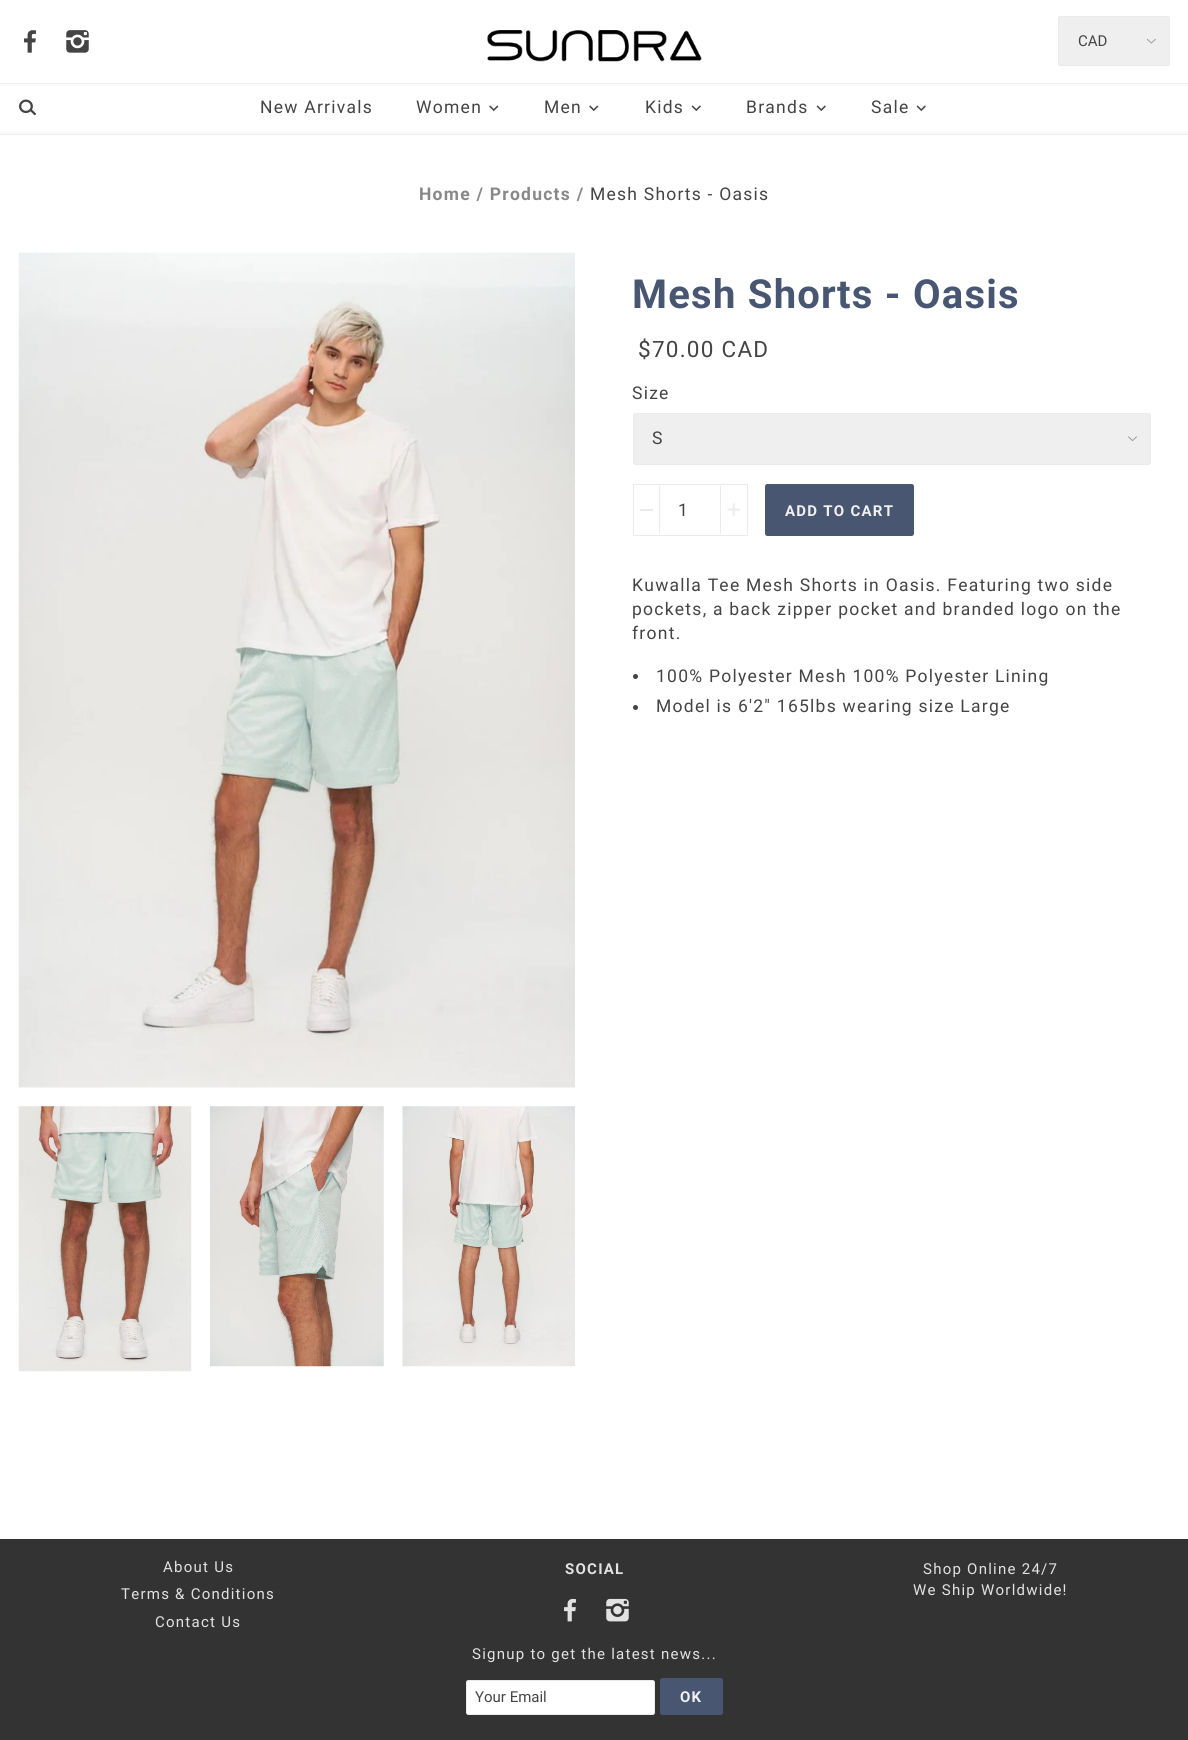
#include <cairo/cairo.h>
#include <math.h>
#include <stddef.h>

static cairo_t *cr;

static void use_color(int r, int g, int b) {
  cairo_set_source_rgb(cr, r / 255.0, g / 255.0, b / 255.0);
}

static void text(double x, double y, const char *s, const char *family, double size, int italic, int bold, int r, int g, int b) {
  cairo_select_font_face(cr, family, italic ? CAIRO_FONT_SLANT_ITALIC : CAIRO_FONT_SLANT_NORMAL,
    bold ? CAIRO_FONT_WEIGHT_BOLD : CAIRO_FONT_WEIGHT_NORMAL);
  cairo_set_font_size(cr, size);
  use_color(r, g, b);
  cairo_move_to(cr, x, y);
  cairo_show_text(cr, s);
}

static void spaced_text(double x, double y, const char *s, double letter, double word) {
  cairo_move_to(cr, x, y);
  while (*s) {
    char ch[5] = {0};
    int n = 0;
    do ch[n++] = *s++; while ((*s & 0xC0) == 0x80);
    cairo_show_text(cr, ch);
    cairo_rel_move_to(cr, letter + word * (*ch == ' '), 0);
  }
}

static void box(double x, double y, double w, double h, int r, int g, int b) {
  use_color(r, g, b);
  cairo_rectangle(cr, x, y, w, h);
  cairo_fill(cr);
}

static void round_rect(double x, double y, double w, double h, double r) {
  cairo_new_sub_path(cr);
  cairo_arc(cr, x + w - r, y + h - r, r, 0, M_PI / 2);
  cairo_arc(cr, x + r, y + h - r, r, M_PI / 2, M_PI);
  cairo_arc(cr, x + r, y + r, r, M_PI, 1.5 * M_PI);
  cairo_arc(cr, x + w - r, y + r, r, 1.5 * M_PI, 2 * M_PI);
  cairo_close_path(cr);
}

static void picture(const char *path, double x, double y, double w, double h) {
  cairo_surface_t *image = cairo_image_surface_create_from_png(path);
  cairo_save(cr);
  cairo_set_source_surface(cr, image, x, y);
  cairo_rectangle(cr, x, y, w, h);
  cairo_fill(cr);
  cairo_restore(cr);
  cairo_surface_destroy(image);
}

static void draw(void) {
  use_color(255, 255, 255);
  cairo_paint(cr);
  picture("img_01.png", 24, 30, 12, 23);
  picture("img_02.png", 66, 30, 23, 23);
  picture("img_03.png", 487, 30, 215, 32);
  use_color(239, 239, 239);
  round_rect(1058, 16, 112, 50, 2.5);
  cairo_fill(cr);
  picture("img_04.png", 1146, 39, 10, 5);
  round_rect(1058.5, 16.5, 111, 49, 2);
  use_color(235, 235, 235);
  cairo_set_line_width(cr, 1);
  cairo_stroke(cr);
  box(0, 84, 1188, 50, 250, 250, 250);
  box(0, 83, 1188, 1, 238, 238, 238);
  box(0, 134, 1188, 1, 238, 238, 238);
  box(0, 86, 1188, 45, 255, 255, 255);
  picture("img_05.png", 19, 99, 17, 17);
  picture("img_06.png", 489, 105, 10, 7);
  picture("img_06.png", 589, 105, 10, 7);
  picture("img_07.png", 691, 105, 10, 7);
  picture("img_07.png", 816, 105, 10, 7);
  picture("img_07.png", 916, 105, 10, 7);
  picture("img_08.png", 18, 252, 557, 836);
  picture("img_09.png", 18, 1106, 174, 266);
  picture("img_10.png", 210, 1106, 174, 261);
  picture("img_11.png", 402, 1106, 173, 261);
  use_color(239, 239, 239);
  round_rect(633, 413, 518, 52, 2.5);
  cairo_fill(cr);
  picture("img_12.png", 1128, 436, 9, 5);
  round_rect(633.5, 413.5, 517, 51, 2);
  use_color(235, 235, 235);
  cairo_stroke(cr);
  cairo_rectangle(cr, 633.5, 484.5, 114, 51);
  cairo_stroke(cr);
  box(640, 509, 13, 2, 235, 235, 235);
  box(720, 486, 1, 48, 235, 235, 235);
  box(659, 486, 1, 48, 235, 235, 235);
  picture("img_13.png", 727, 503, 13, 13);
  use_color(72, 86, 113);
  round_rect(765.5, 484.5, 148, 51, 2);
  cairo_fill_preserve(cr);
  cairo_stroke(cr);
  use_color(68, 68, 68);
  cairo_arc(cr, 635.5, 676.5, 2.5, 0, 2 * M_PI);
  cairo_fill(cr);
  cairo_arc(cr, 635.5, 707.5, 2.5, 0, 2 * M_PI);
  cairo_fill(cr);
  box(0, 1539, 1188, 201, 51, 51, 51);
  picture("img_14.png", 564, 1598, 12, 24);
  picture("img_15.png", 606, 1598, 23, 24);
  use_color(255, 255, 255);
  round_rect(466.5, 1680.5, 188, 34, 2);
  cairo_fill_preserve(cr);
  use_color(235, 235, 235);
  cairo_stroke(cr);
  use_color(72, 86, 113);
  round_rect(660.5, 1678.5, 62, 36, 2);
  cairo_fill_preserve(cr);
  cairo_stroke(cr);
  text(1078, 46, "CAD", "Roboto", 15, 0, 0, 68, 68, 68);
  cairo_set_font_size(cr, 17.5);
  spaced_text(260, 113, "New Arrivals", 1.25, 0);
  spaced_text(416, 113, "Women", 1.25, 0);
  spaced_text(544, 113, "Men", 1.25, 0);
  spaced_text(645, 113, "Kids", 1.25, 0);
  spaced_text(746, 113, "Brands", 1.25, 0);
  spaced_text(871, 113, "Sale", 1.25, 0);
  cairo_select_font_face(cr, "Roboto", CAIRO_FONT_SLANT_NORMAL, CAIRO_FONT_WEIGHT_BOLD);
  use_color(136, 136, 136);
  spaced_text(419, 200, "Home / Products /", 1.25, 0);
  cairo_select_font_face(cr, "Roboto", CAIRO_FONT_SLANT_NORMAL, CAIRO_FONT_WEIGHT_NORMAL);
  use_color(68, 68, 68);
  spaced_text(590, 200, "Mesh Shorts - Oasis", 1.25, 0);
  cairo_select_font_face(cr, "Roboto", CAIRO_FONT_SLANT_NORMAL, CAIRO_FONT_WEIGHT_BOLD);
  cairo_set_font_size(cr, 40);
  use_color(72, 86, 113);
  spaced_text(632, 308, "Mesh Shorts - Oasis", 1.25, 0);
  cairo_select_font_face(cr, "Roboto", CAIRO_FONT_SLANT_NORMAL, CAIRO_FONT_WEIGHT_NORMAL);
  cairo_set_font_size(cr, 22.5);
  use_color(68, 68, 68);
  spaced_text(638, 357, "$70.00 CAD", 1.25, 0);
  cairo_set_font_size(cr, 17.5);
  spaced_text(632, 399, "Size", 1.25, 0);
  text(652, 444, "S", "Roboto", 17.5, 0, 0, 68, 68, 68);
  text(678, 516, "1", "Roboto", 17.5, 0, 0, 68, 68, 68);
  cairo_select_font_face(cr, "Roboto", CAIRO_FONT_SLANT_NORMAL, CAIRO_FONT_WEIGHT_BOLD);
  cairo_set_font_size(cr, 15);
  use_color(241, 241, 241);
  spaced_text(785, 516, "ADD TO CART", 1.25, 0);
  cairo_select_font_face(cr, "Roboto", CAIRO_FONT_SLANT_NORMAL, CAIRO_FONT_WEIGHT_NORMAL);
  cairo_set_font_size(cr, 17.5);
  use_color(68, 68, 68);
  spaced_text(632, 591, "Kuwalla Tee Mesh Shorts in Oasis. Featuring two side", 1.25, 0);
  spaced_text(632, 615, "pockets, a back zipper pocket and branded logo on the", 1.25, 0);
  spaced_text(632, 639, "front.", 1.25, 0);
  spaced_text(656, 682, "100% Polyester Mesh 100% Polyester Lining", 1.25, 0);
  spaced_text(656, 712, "Model is 6'2\" 165lbs wearing size Large", 1.25, 0);
  cairo_set_font_size(cr, 15);
  use_color(226, 226, 226);
  spaced_text(163, 1572, "About Us", 1.25, 0);
  spaced_text(121, 1599, "Terms & Conditions", 1.25, 0);
  spaced_text(155, 1627, "Contact Us", 1.25, 0);
  cairo_select_font_face(cr, "Roboto", CAIRO_FONT_SLANT_NORMAL, CAIRO_FONT_WEIGHT_BOLD);
  spaced_text(565, 1574, "SOCIAL", 1.25, 0);
  cairo_select_font_face(cr, "Roboto", CAIRO_FONT_SLANT_NORMAL, CAIRO_FONT_WEIGHT_NORMAL);
  spaced_text(472, 1659, "Signup to get the latest news...", 1.25, 0);
  text(475, 1702, "Your Email", "Roboto", 15, 0, 0, 68, 68, 68);
  cairo_select_font_face(cr, "Roboto", CAIRO_FONT_SLANT_NORMAL, CAIRO_FONT_WEIGHT_BOLD);
  use_color(241, 241, 241);
  spaced_text(680, 1702, "OK", 1.25, 0);
  cairo_select_font_face(cr, "Roboto", CAIRO_FONT_SLANT_NORMAL, CAIRO_FONT_WEIGHT_NORMAL);
  use_color(226, 226, 226);
  spaced_text(923, 1574, "Shop Online 24/7", 1.25, 0);
  spaced_text(913, 1595, "We Ship Worldwide!", 1.25, 0);
}

int main(void) {
  cairo_surface_t *surface = cairo_image_surface_create(CAIRO_FORMAT_RGB24, 1188, 1740);
  cr = cairo_create(surface);
  cairo_font_options_t *options = cairo_font_options_create();
  cairo_font_options_set_hint_metrics(options, CAIRO_HINT_METRICS_OFF);
  cairo_font_options_set_hint_style(options, CAIRO_HINT_STYLE_NONE);
  cairo_set_font_options(cr, options);
  cairo_set_miter_limit(cr, 4);
  draw();
  cairo_surface_write_to_png(surface, "out.png");
  cairo_font_options_destroy(options);
  cairo_destroy(cr);
  cairo_surface_destroy(surface);
  return 0;
}
